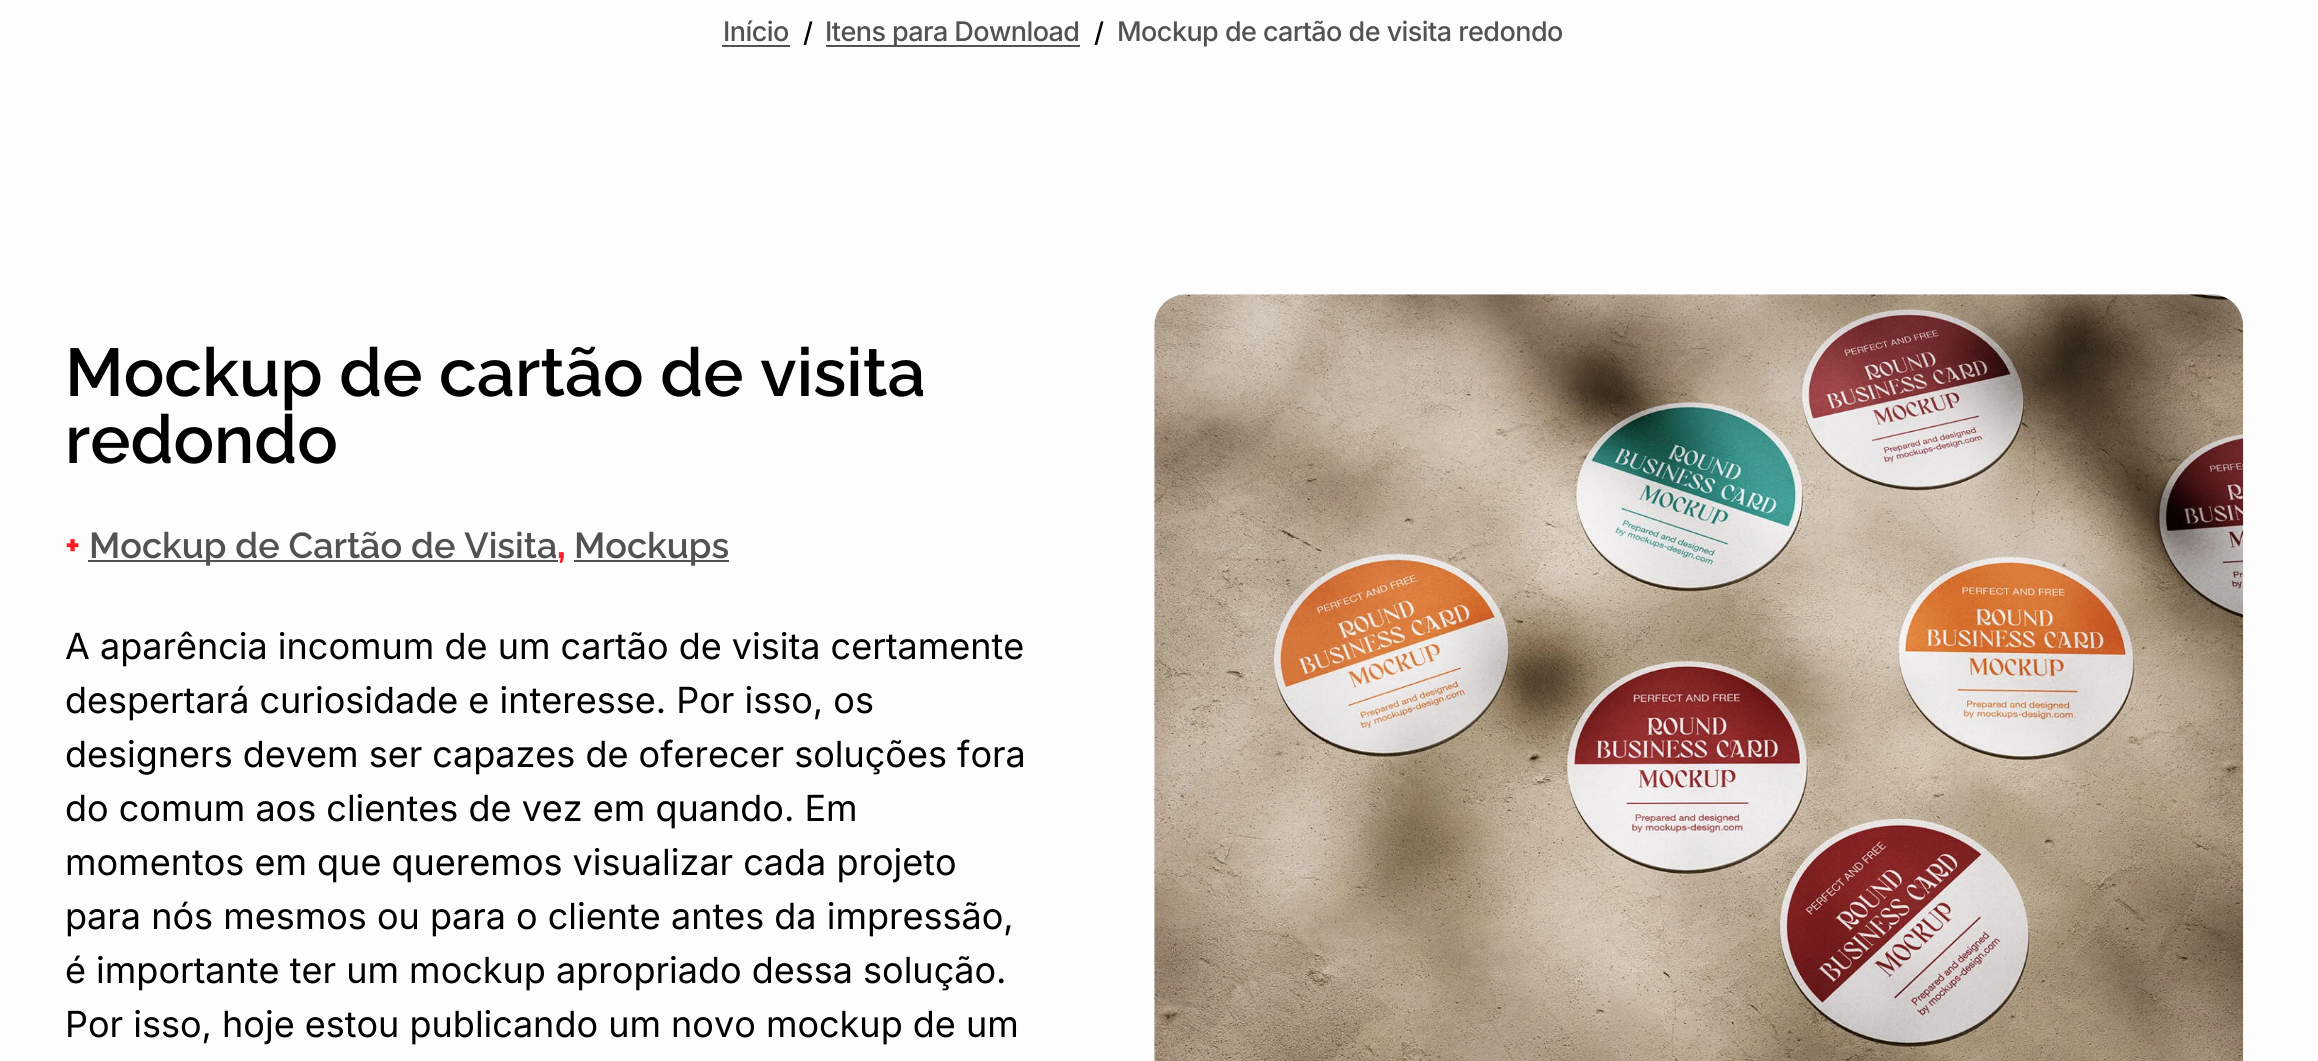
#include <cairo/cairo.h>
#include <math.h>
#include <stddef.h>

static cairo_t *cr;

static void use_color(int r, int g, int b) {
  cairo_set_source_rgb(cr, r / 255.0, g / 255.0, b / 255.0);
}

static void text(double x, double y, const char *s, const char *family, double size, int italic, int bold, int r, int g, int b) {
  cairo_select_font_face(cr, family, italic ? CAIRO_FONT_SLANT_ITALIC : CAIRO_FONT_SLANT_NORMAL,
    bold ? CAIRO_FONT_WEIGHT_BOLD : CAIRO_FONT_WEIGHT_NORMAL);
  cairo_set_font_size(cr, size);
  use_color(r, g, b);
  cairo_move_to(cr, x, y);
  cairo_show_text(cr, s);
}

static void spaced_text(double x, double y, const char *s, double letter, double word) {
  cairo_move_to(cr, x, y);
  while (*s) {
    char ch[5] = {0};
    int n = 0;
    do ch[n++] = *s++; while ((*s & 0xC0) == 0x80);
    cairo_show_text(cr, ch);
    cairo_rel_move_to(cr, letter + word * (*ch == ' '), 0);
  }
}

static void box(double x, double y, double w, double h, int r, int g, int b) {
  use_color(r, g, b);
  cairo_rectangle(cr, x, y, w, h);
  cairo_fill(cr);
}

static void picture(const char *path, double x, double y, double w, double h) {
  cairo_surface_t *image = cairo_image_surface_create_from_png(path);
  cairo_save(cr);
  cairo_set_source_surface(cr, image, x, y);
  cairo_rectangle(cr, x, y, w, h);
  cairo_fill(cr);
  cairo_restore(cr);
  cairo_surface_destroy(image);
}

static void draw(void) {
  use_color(253, 253, 253);
  cairo_paint(cr);
  box(722, 45, 68, 2, 82, 82, 82);
  box(826, 45, 254, 2, 82, 82, 82);
  box(88, 560, 470, 2, 82, 82, 82);
  box(574, 560, 155, 2, 82, 82, 82);
  picture("img_01.png", 1154, 294, 1090, 767);
  cairo_select_font_face(cr, "Inter Medium", CAIRO_FONT_SLANT_NORMAL, CAIRO_FONT_WEIGHT_NORMAL);
  cairo_set_font_size(cr, 27);
  spaced_text(723, 41, "Início", -0.55, 0);
  use_color(0, 0, 0);
  spaced_text(803, 42, "/", -0.55, 0);
  use_color(82, 82, 82);
  spaced_text(825, 41, "Itens para Download", -0.55, 0);
  use_color(0, 0, 0);
  spaced_text(1094, 42, "/", -0.55, 0);
  use_color(82, 82, 82);
  spaced_text(1117, 41, "Mockup de cartão de visita redondo", -0.55, 0);
  text(65, 396, "Mockup de cartão de visita", "Raleway SemiBold", 67.5, 0, 0, 0, 0, 0);
  text(65, 463, "redondo", "Raleway SemiBold", 67.5, 0, 0, 0, 0, 0);
  text(65, 558, "+", "Raleway", 36, 0, 1, 255, 27, 35);
  text(89, 558, "Mockup de Cartão de Visita", "Raleway SemiBold", 36, 0, 0, 82, 82, 82);
  text(574, 558, "Mockups", "Raleway SemiBold", 36, 0, 0, 82, 82, 82);
  text(557, 558, ",", "Raleway ExtraBold", 36, 0, 0, 255, 27, 35);
  text(65, 659, "A aparência incomum de um cartão de visita certamente", "Inter", 36, 0, 0, 0, 0, 0);
  text(65, 713, "despertará curiosidade e interesse. Por isso, os", "Inter", 36, 0, 0, 0, 0, 0);
  text(65, 767, "designers devem ser capazes de oferecer soluções fora", "Inter", 36, 0, 0, 0, 0, 0);
  text(65, 821, "do comum aos clientes de vez em quando. Em", "Inter", 36, 0, 0, 0, 0, 0);
  text(65, 875, "momentos em que queremos visualizar cada projeto", "Inter", 36, 0, 0, 0, 0, 0);
  text(65, 929, "para nós mesmos ou para o cliente antes da impressão,", "Inter", 36, 0, 0, 0, 0, 0);
  text(65, 983, "é importante ter um mockup apropriado dessa solução.", "Inter", 36, 0, 0, 0, 0, 0);
  text(65, 1037, "Por isso, hoje estou publicando um novo mockup de um", "Inter", 36, 0, 0, 0, 0, 0);
}

int main(void) {
  cairo_surface_t *surface = cairo_image_surface_create(CAIRO_FORMAT_RGB24, 2318, 1061);
  cr = cairo_create(surface);
  cairo_font_options_t *options = cairo_font_options_create();
  cairo_font_options_set_hint_metrics(options, CAIRO_HINT_METRICS_OFF);
  cairo_font_options_set_hint_style(options, CAIRO_HINT_STYLE_NONE);
  cairo_set_font_options(cr, options);
  cairo_set_miter_limit(cr, 4);
  draw();
  cairo_surface_write_to_png(surface, "out.png");
  cairo_font_options_destroy(options);
  cairo_destroy(cr);
  cairo_surface_destroy(surface);
  return 0;
}
